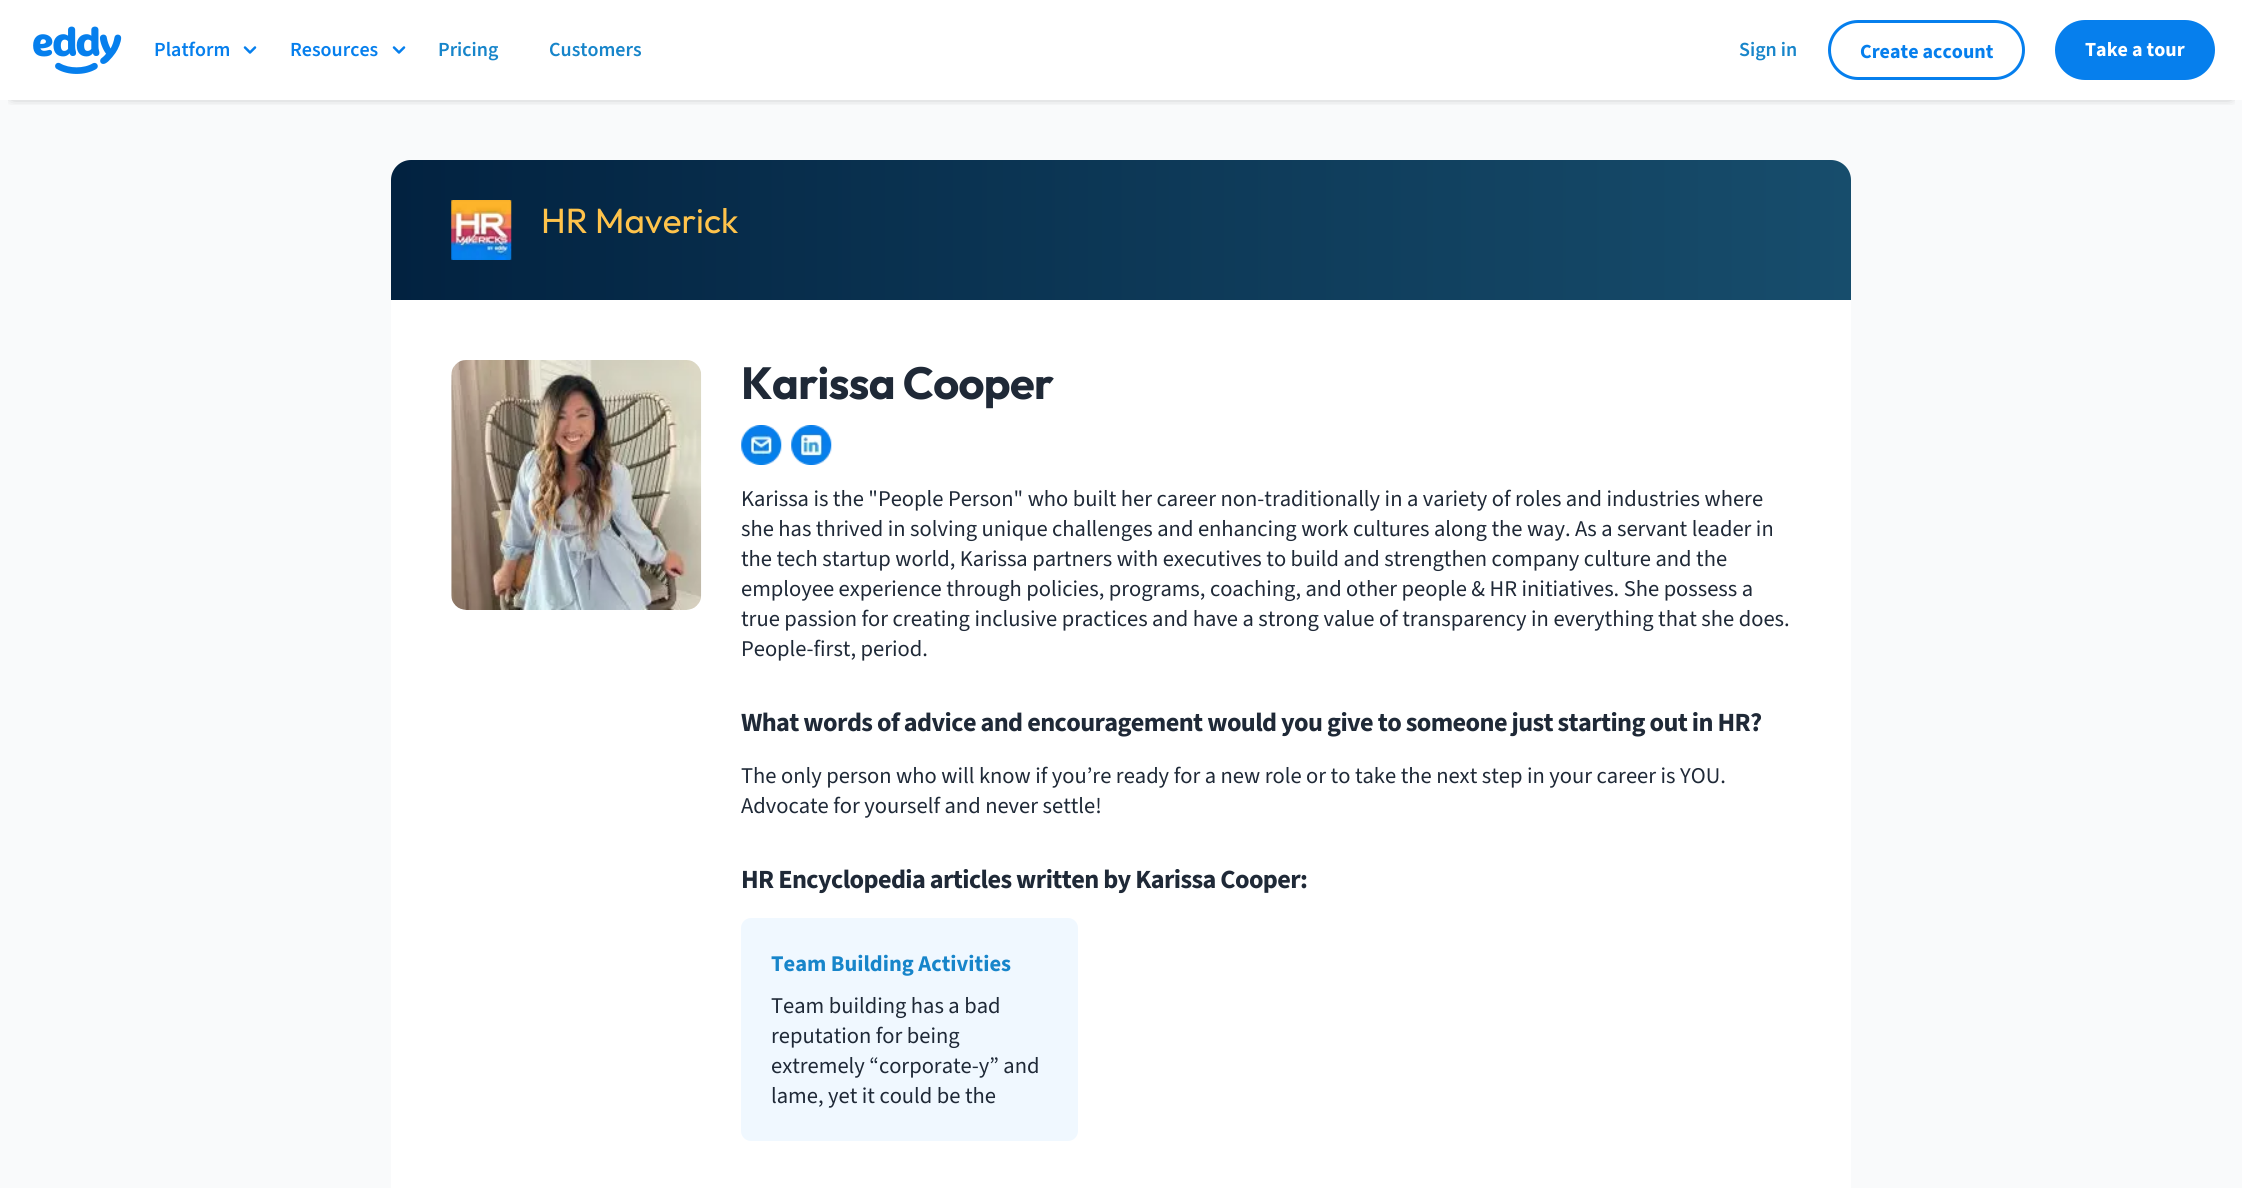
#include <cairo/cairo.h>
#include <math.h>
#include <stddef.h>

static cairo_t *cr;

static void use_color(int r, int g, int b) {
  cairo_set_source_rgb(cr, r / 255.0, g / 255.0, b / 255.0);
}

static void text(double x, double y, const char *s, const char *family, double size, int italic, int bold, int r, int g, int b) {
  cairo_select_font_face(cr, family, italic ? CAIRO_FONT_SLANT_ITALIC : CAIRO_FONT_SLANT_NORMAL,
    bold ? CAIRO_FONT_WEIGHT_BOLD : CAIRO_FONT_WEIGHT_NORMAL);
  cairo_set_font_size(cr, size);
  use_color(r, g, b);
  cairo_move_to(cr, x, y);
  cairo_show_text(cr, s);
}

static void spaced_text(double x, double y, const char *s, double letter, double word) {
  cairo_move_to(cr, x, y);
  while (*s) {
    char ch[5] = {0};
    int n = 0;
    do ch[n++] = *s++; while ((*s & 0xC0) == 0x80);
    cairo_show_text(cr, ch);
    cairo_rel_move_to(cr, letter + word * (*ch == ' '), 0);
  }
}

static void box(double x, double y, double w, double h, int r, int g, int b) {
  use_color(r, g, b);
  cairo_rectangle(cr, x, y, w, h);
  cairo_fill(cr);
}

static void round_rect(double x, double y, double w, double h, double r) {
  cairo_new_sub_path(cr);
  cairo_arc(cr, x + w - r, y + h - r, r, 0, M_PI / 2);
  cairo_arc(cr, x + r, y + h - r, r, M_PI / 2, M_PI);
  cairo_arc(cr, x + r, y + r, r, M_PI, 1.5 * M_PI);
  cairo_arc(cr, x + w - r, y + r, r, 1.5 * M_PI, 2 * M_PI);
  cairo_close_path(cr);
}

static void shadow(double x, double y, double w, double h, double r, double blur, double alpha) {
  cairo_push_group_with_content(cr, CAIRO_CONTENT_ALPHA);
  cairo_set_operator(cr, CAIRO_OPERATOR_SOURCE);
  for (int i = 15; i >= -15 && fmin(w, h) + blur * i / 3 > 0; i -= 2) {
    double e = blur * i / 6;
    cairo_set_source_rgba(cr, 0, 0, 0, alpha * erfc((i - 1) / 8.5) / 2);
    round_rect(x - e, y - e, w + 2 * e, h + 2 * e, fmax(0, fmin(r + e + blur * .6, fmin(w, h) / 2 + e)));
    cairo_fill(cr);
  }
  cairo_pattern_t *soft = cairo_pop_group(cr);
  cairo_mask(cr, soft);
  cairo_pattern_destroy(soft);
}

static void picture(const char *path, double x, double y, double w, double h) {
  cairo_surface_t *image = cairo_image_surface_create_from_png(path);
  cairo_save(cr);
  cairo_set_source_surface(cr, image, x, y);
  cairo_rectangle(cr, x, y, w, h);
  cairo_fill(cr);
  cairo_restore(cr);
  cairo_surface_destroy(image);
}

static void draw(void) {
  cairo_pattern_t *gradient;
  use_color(255, 255, 255);
  cairo_paint(cr);
  box(0, 100, 2242, 1088, 249, 250, 251);
  cairo_save(cr);
  cairo_rectangle(cr, 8, 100, 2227, 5);
  cairo_clip(cr);
  use_color(0, 0, 0);
  shadow(13, 20, 2217, 75, 0, 6, 0.5);
  cairo_restore(cr);
  picture("img_01.png", 33, 26, 89, 48);
  cairo_new_path(cr);
  cairo_move_to(cr, 245, 47.5);
  cairo_line_to(cr, 250, 52.5);
  cairo_line_to(cr, 255, 47.5);
  use_color(6, 127, 237);
  cairo_set_line_width(cr, 2.5);
  cairo_set_line_cap(cr, CAIRO_LINE_CAP_ROUND);
  cairo_set_line_join(cr, CAIRO_LINE_JOIN_ROUND);
  cairo_stroke(cr);
  cairo_new_path(cr);
  cairo_move_to(cr, 394, 47.5);
  cairo_line_to(cr, 399, 52.5);
  cairo_line_to(cr, 404, 47.5);
  cairo_stroke(cr);
  round_rect(1829.5, 21.5, 194, 57, 28.5);
  cairo_set_line_width(cr, 3);
  cairo_set_line_cap(cr, CAIRO_LINE_CAP_BUTT);
  cairo_set_line_join(cr, CAIRO_LINE_JOIN_MITER);
  cairo_stroke(cr);
  round_rect(2055, 20, 160, 60, 30);
  cairo_fill(cr);
  gradient = cairo_pattern_create_linear(391, 230, 1851, 230);
  cairo_pattern_add_color_stop_rgba(gradient, 0, 0.008, 0.133, 0.251, 1);
  cairo_pattern_add_color_stop_rgba(gradient, 1, 0.09, 0.302, 0.424, 1);
  cairo_set_source(cr, gradient);
  cairo_pattern_destroy(gradient);
  cairo_new_path(cr);
  cairo_move_to(cr, 411, 160);
  cairo_line_to(cr, 1831, 160);
  cairo_curve_to(cr, 1842, 160, 1851, 169, 1851, 180);
  cairo_line_to(cr, 1851, 300);
  cairo_line_to(cr, 391, 300);
  cairo_line_to(cr, 391, 180);
  cairo_curve_to(cr, 391, 169, 400, 160, 411, 160);
  cairo_close_path(cr);
  cairo_fill(cr);
  picture("img_02.png", 451, 200, 61, 60);
  box(391, 300, 1460, 888, 255, 255, 255);
  picture("img_03.png", 451, 360, 251, 250);
  picture("img_04.png", 741, 425, 41, 40);
  picture("img_05.png", 791, 425, 41, 40);
  use_color(240, 248, 255);
  round_rect(741, 918, 337, 223, 10);
  cairo_fill(cr);
  text(154, 56, "Platform", "Source Sans 3 SemiBold", 20, 0, 0, 6, 127, 237);
  text(290, 56, "Resources", "Source Sans 3 SemiBold", 20, 0, 0, 6, 127, 237);
  text(438, 56, "Pricing", "Source Sans 3 SemiBold", 20, 0, 0, 23, 133, 202);
  text(549, 56, "Customers", "Source Sans 3 SemiBold", 20, 0, 0, 23, 133, 202);
  text(1739, 56, "Sign in", "Source Sans 3 SemiBold", 20, 0, 0, 23, 133, 202);
  text(1860, 58, "Create account", "Source Sans 3", 20, 0, 1, 6, 127, 237);
  text(2085, 56, "Take a tour", "Source Sans 3", 20, 0, 1, 255, 255, 255);
  text(541, 233, "HR Maverick", "Outfit", 35, 0, 0, 255, 195, 75);
  cairo_select_font_face(cr, "Outfit", CAIRO_FONT_SLANT_NORMAL, CAIRO_FONT_WEIGHT_BOLD);
  cairo_set_font_size(cr, 45);
  use_color(31, 41, 55);
  spaced_text(741, 399, "Karissa Cooper", -0.62, 0);
  text(741, 506, "Karissa is the \"People Person\" who built her career non-traditionally in a variety of roles and industries where", "Source Sans 3", 22.5, 0, 0, 31, 41, 55);
  text(741, 536, "she has thrived in solving unique challenges and enhancing work cultures along the way. As a servant leader in", "Source Sans 3", 22.5, 0, 0, 31, 41, 55);
  text(741, 566, "the tech startup world, Karissa partners with executives to build and strengthen company culture and the", "Source Sans 3", 22.5, 0, 0, 31, 41, 55);
  text(741, 596, "employee experience through policies, programs, coaching, and other people & HR initiatives. She possess a", "Source Sans 3", 22.5, 0, 0, 31, 41, 55);
  text(741, 626, "true passion for creating inclusive practices and have a strong value of transparency in everything that she does.", "Source Sans 3", 22.5, 0, 0, 31, 41, 55);
  text(741, 656, "People-first, period.", "Source Sans 3", 22.5, 0, 0, 31, 41, 55);
  cairo_select_font_face(cr, "Source Sans 3", CAIRO_FONT_SLANT_NORMAL, CAIRO_FONT_WEIGHT_BOLD);
  cairo_set_font_size(cr, 26.25);
  spaced_text(741, 731, "What words of advice and encouragement would you give to someone just starting out in HR?", -0.62, 0);
  text(741, 783, "The only person who will know if you’re ready for a new role or to take the next step in your career is YOU.", "Source Sans 3", 22.5, 0, 0, 31, 41, 55);
  text(741, 813, "Advocate for yourself and never settle!", "Source Sans 3", 22.5, 0, 0, 31, 41, 55);
  cairo_select_font_face(cr, "Source Sans 3", CAIRO_FONT_SLANT_NORMAL, CAIRO_FONT_WEIGHT_BOLD);
  cairo_set_font_size(cr, 26.25);
  spaced_text(741, 888, "HR Encyclopedia articles written by Karissa Cooper:", -0.62, 0);
  text(771, 971, "Team Building Activities", "Source Sans 3", 22.5, 0, 1, 23, 133, 202);
  text(771, 1013, "Team building has a bad", "Source Sans 3", 22.5, 0, 0, 31, 41, 55);
  text(771, 1043, "reputation for being", "Source Sans 3", 22.5, 0, 0, 31, 41, 55);
  text(771, 1073, "extremely “corporate-y” and", "Source Sans 3", 22.5, 0, 0, 31, 41, 55);
  text(771, 1103, "lame, yet it could be the", "Source Sans 3", 22.5, 0, 0, 31, 41, 55);
}

int main(void) {
  cairo_surface_t *surface = cairo_image_surface_create(CAIRO_FORMAT_RGB24, 2242, 1188);
  cr = cairo_create(surface);
  cairo_font_options_t *options = cairo_font_options_create();
  cairo_font_options_set_hint_metrics(options, CAIRO_HINT_METRICS_OFF);
  cairo_font_options_set_hint_style(options, CAIRO_HINT_STYLE_NONE);
  cairo_set_font_options(cr, options);
  cairo_set_miter_limit(cr, 4);
  draw();
  cairo_surface_write_to_png(surface, "out.png");
  cairo_font_options_destroy(options);
  cairo_destroy(cr);
  cairo_surface_destroy(surface);
  return 0;
}
